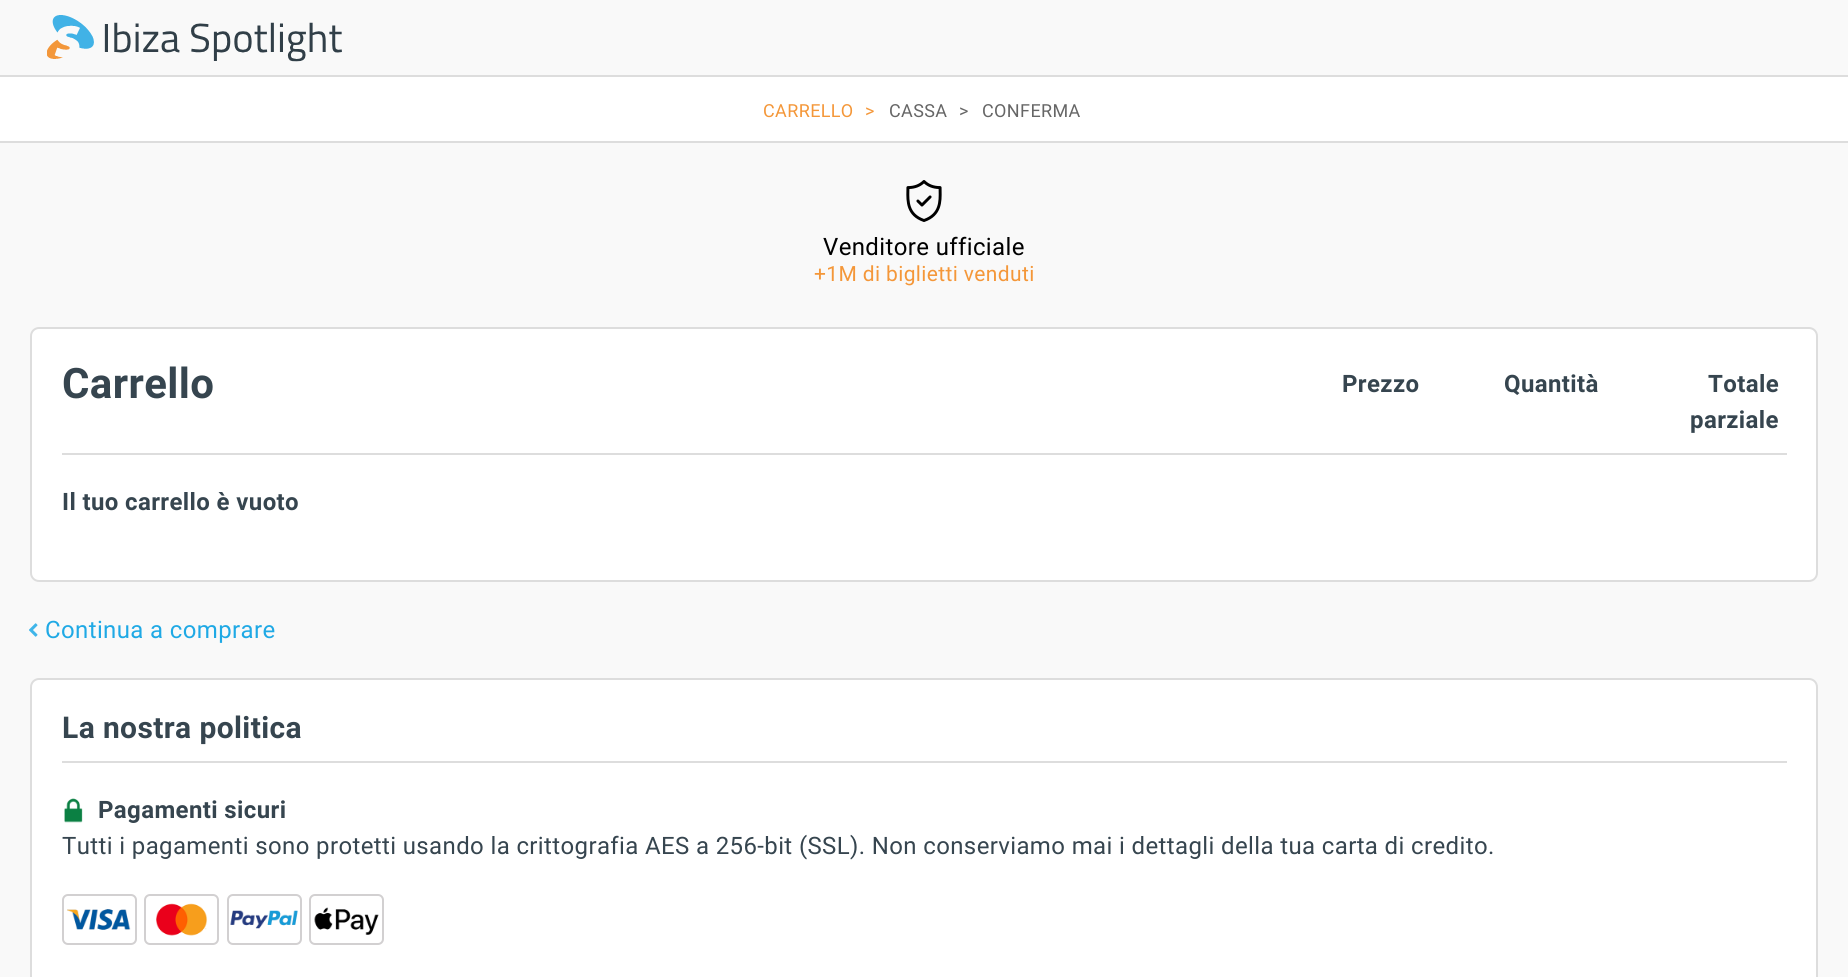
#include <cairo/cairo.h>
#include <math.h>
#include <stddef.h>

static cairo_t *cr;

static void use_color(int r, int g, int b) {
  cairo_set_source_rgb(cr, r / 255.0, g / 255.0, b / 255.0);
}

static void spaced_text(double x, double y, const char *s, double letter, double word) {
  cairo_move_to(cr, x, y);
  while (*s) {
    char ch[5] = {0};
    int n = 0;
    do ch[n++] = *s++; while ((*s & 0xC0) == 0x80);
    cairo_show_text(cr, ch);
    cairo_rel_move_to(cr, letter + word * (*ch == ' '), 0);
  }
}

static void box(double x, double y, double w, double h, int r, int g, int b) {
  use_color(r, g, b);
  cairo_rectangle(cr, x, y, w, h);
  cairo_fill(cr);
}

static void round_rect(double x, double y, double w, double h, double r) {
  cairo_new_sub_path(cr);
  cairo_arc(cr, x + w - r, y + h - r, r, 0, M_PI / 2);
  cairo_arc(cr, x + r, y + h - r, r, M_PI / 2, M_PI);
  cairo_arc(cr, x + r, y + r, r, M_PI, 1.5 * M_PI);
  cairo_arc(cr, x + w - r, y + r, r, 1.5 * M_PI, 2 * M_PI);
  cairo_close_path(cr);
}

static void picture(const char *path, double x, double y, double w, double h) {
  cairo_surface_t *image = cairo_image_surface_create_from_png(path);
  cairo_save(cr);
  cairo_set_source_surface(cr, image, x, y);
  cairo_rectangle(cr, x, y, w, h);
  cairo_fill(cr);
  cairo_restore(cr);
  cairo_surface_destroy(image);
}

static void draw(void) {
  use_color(249, 249, 249);
  cairo_paint(cr);
  picture("img_01.png", 47, 15, 295, 47);
  box(0, 77, 1848, 64, 255, 255, 255);
  box(0, 75, 1848, 2, 221, 221, 221);
  box(0, 141, 1848, 2, 221, 221, 221);
  picture("img_02.png", 906, 180, 36, 42);
  use_color(255, 255, 255);
  round_rect(31, 328, 1786, 253, 8);
  cairo_fill_preserve(cr);
  use_color(221, 221, 221);
  cairo_stroke(cr);
  box(62, 453, 1725, 2, 221, 221, 221);
  picture("img_03.png", 29, 623, 9, 14);
  use_color(255, 255, 255);
  round_rect(31, 679, 1786, 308, 8);
  cairo_fill_preserve(cr);
  use_color(221, 221, 221);
  cairo_stroke(cr);
  box(62, 761, 1725, 2, 221, 221, 221);
  picture("img_04.png", 64, 798, 19, 25);
  round_rect(63, 895, 73, 49, 5);
  use_color(210, 208, 209);
  cairo_stroke(cr);
  picture("img_05.png", 67, 909, 64, 21);
  round_rect(145, 895, 73, 49, 5);
  cairo_stroke(cr);
  picture("img_06.png", 156, 903, 52, 33);
  round_rect(228, 895, 73, 49, 5);
  cairo_stroke(cr);
  picture("img_07.png", 230, 910, 68, 19);
  round_rect(310, 895, 73, 49, 5);
  cairo_stroke(cr);
  picture("img_08.png", 314, 907, 65, 28);
  cairo_select_font_face(cr, "Roboto", CAIRO_FONT_SLANT_NORMAL, CAIRO_FONT_WEIGHT_NORMAL);
  cairo_set_font_size(cr, 18);
  use_color(244, 151, 57);
  spaced_text(763, 117, "CARRELLO", 0.38, 0);
  spaced_text(865, 117, ">", 0.38, 0);
  use_color(102, 102, 102);
  spaced_text(889, 117, "CASSA", 0.38, 0);
  spaced_text(959, 117, ">", 0.38, 0);
  spaced_text(982, 117, "CONFERMA", 0.38, 0);
  cairo_set_font_size(cr, 24);
  use_color(0, 0, 0);
  spaced_text(823, 255, "Venditore ufficiale", 0.38, 0);
  cairo_set_font_size(cr, 21);
  use_color(244, 151, 57);
  spaced_text(814, 281, "+1M di biglietti venduti", 0.38, 0);
  cairo_select_font_face(cr, "Roboto", CAIRO_FONT_SLANT_NORMAL, CAIRO_FONT_WEIGHT_BOLD);
  cairo_set_font_size(cr, 42);
  use_color(54, 69, 79);
  spaced_text(62, 398, "Carrello", 0.38, 0);
  cairo_set_font_size(cr, 24);
  spaced_text(1342, 392, "Prezzo", 0.38, 0);
  spaced_text(1504, 392, "Quantità", 0.38, 0);
  spaced_text(1708, 392, "Totale", 0.38, 0);
  spaced_text(1690, 428, "parziale", 0.38, 0);
  spaced_text(62, 510, "Il tuo carrello è vuoto", 0.38, 0);
  cairo_select_font_face(cr, "Roboto", CAIRO_FONT_SLANT_NORMAL, CAIRO_FONT_WEIGHT_NORMAL);
  use_color(31, 169, 229);
  spaced_text(45, 638, "Continua a comprare", 0.38, 0);
  cairo_select_font_face(cr, "Roboto", CAIRO_FONT_SLANT_NORMAL, CAIRO_FONT_WEIGHT_BOLD);
  cairo_set_font_size(cr, 30);
  use_color(54, 69, 79);
  spaced_text(62, 738, "La nostra politica", 0.38, 0);
  cairo_set_font_size(cr, 24);
  spaced_text(98, 818, "Pagamenti sicuri", 0.38, 0);
  cairo_select_font_face(cr, "Roboto", CAIRO_FONT_SLANT_NORMAL, CAIRO_FONT_WEIGHT_NORMAL);
  spaced_text(62, 854, "Tutti i pagamenti sono protetti usando la crittografia AES a 256-bit (SSL). Non conserviamo mai i dettagli della tua carta di credito.", 0.38, 0);
}

int main(void) {
  cairo_surface_t *surface = cairo_image_surface_create(CAIRO_FORMAT_RGB24, 1848, 977);
  cr = cairo_create(surface);
  cairo_font_options_t *options = cairo_font_options_create();
  cairo_font_options_set_hint_metrics(options, CAIRO_HINT_METRICS_OFF);
  cairo_font_options_set_hint_style(options, CAIRO_HINT_STYLE_NONE);
  cairo_set_font_options(cr, options);
  cairo_set_miter_limit(cr, 4);
  draw();
  cairo_surface_write_to_png(surface, "out.png");
  cairo_font_options_destroy(options);
  cairo_destroy(cr);
  cairo_surface_destroy(surface);
  return 0;
}
